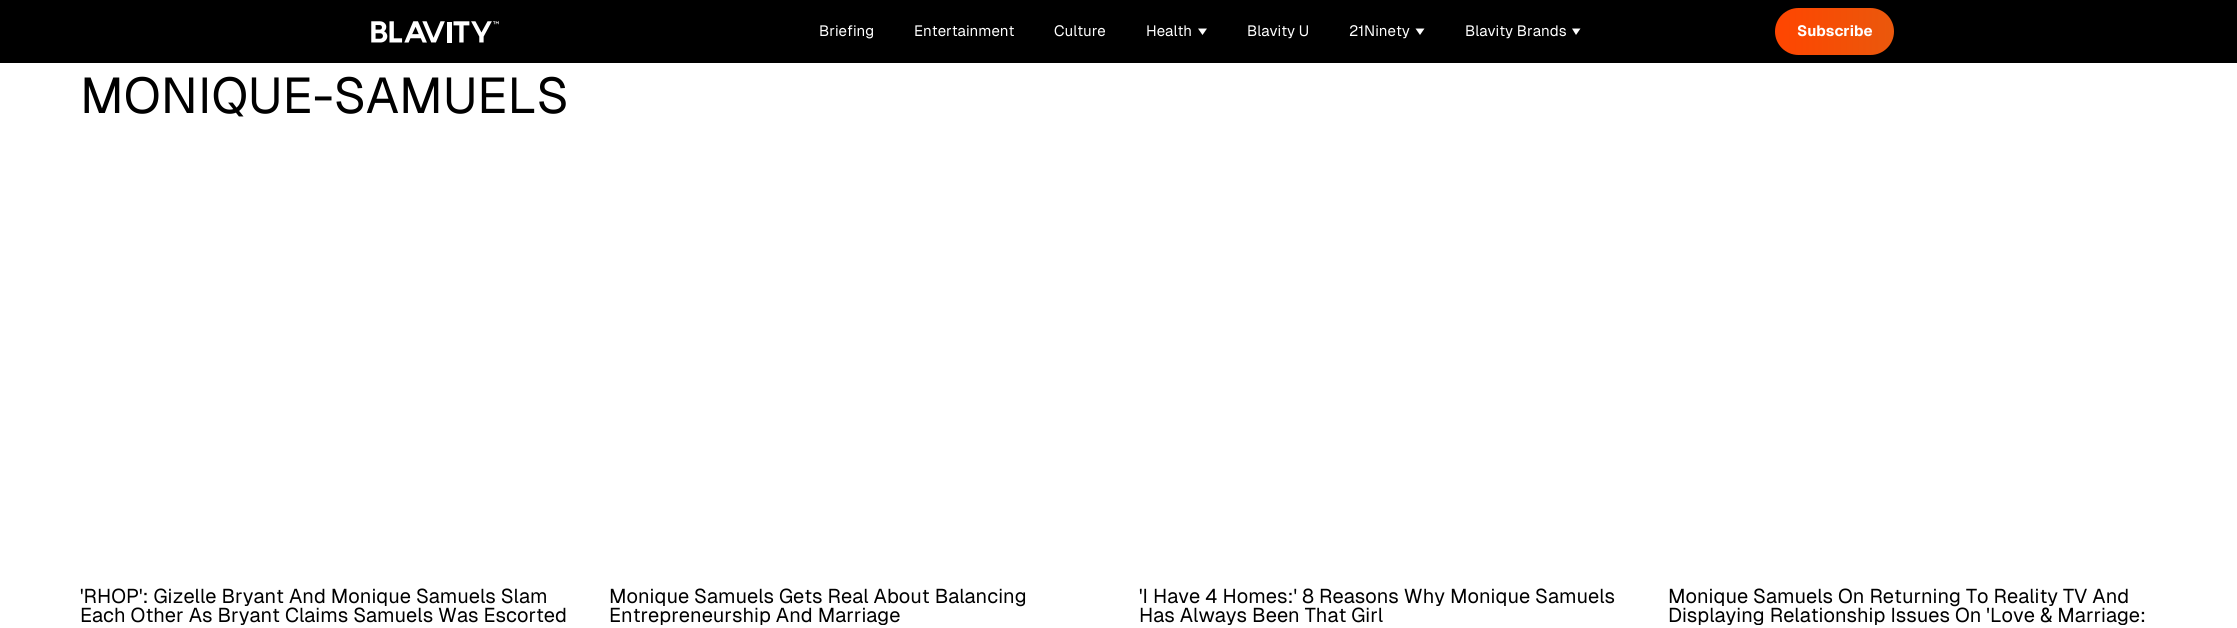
#include <cairo/cairo.h>
#include <math.h>
#include <stddef.h>

static cairo_t *cr;

static void use_color(int r, int g, int b) {
  cairo_set_source_rgb(cr, r / 255.0, g / 255.0, b / 255.0);
}

static void text(double x, double y, const char *s, const char *family, double size, int italic, int bold, int r, int g, int b) {
  cairo_select_font_face(cr, family, italic ? CAIRO_FONT_SLANT_ITALIC : CAIRO_FONT_SLANT_NORMAL,
    bold ? CAIRO_FONT_WEIGHT_BOLD : CAIRO_FONT_WEIGHT_NORMAL);
  cairo_set_font_size(cr, size);
  use_color(r, g, b);
  cairo_move_to(cr, x, y);
  cairo_show_text(cr, s);
}

static void box(double x, double y, double w, double h, int r, int g, int b) {
  use_color(r, g, b);
  cairo_rectangle(cr, x, y, w, h);
  cairo_fill(cr);
}

static void round_rect(double x, double y, double w, double h, double r) {
  cairo_new_sub_path(cr);
  cairo_arc(cr, x + w - r, y + h - r, r, 0, M_PI / 2);
  cairo_arc(cr, x + r, y + h - r, r, M_PI / 2, M_PI);
  cairo_arc(cr, x + r, y + r, r, M_PI, 1.5 * M_PI);
  cairo_arc(cr, x + w - r, y + r, r, 1.5 * M_PI, 2 * M_PI);
  cairo_close_path(cr);
}

static void picture(const char *path, double x, double y, double w, double h) {
  cairo_surface_t *image = cairo_image_surface_create_from_png(path);
  cairo_save(cr);
  cairo_set_source_surface(cr, image, x, y);
  cairo_rectangle(cr, x, y, w, h);
  cairo_fill(cr);
  cairo_restore(cr);
  cairo_surface_destroy(image);
}

static void draw(void) {
  cairo_pattern_t *gradient;
  use_color(255, 255, 255);
  cairo_paint(cr);
  box(0, 0, 2237, 63, 0, 0, 0);
  picture("img_01.png", 371, 21, 128, 22);
  use_color(255, 255, 255);
  cairo_new_path(cr);
  cairo_move_to(cr, 1202.5, 35);
  cairo_line_to(cr, 1198, 28.5);
  cairo_line_to(cr, 1207, 28.5);
  cairo_close_path(cr);
  cairo_fill(cr);
  cairo_new_path(cr);
  cairo_move_to(cr, 1420, 35);
  cairo_line_to(cr, 1415.5, 28.5);
  cairo_line_to(cr, 1424.5, 28.5);
  cairo_close_path(cr);
  cairo_fill(cr);
  cairo_new_path(cr);
  cairo_move_to(cr, 1576, 35);
  cairo_line_to(cr, 1572, 28.5);
  cairo_line_to(cr, 1580.5, 28.5);
  cairo_close_path(cr);
  cairo_fill(cr);
  gradient = cairo_pattern_create_linear(1775, 31, 1894, 31);
  cairo_pattern_add_color_stop_rgba(gradient, 0, 1, 0.271, 0, 1);
  cairo_pattern_add_color_stop_rgba(gradient, 1, 0.918, 0.345, 0.047, 1);
  cairo_set_source(cr, gradient);
  cairo_pattern_destroy(gradient);
  round_rect(1775, 8, 119, 47, 23.5);
  cairo_fill(cr);
  text(819, 36, "Briefing", "Geist", 15, 0, 0, 255, 255, 255);
  text(914, 36, "Entertainment", "Geist", 15, 0, 0, 255, 255, 255);
  text(1054, 36, "Culture", "Geist", 15, 0, 0, 255, 255, 255);
  text(1146, 36, "Health", "Geist", 15, 0, 0, 255, 255, 255);
  text(1247, 36, "Blavity U", "Geist", 15, 0, 0, 255, 255, 255);
  text(1349, 36, "21Ninety", "Geist", 15, 0, 0, 255, 255, 255);
  text(1465, 36, "Blavity Brands", "Geist", 15, 0, 0, 255, 255, 255);
  text(1797, 36, "Subscribe", "Geist", 15, 0, 1, 255, 255, 255);
  text(80, 113, "MONIQUE-SAMUELS", "Geist", 50, 0, 0, 0, 0, 0);
  text(80, 603, "'RHOP': Gizelle Bryant And Monique Samuels Slam", "Geist", 20, 0, 0, 0, 0, 0);
  text(80, 622, "Each Other As Bryant Claims Samuels Was Escorted", "Geist", 20, 0, 0, 0, 0, 0);
  text(609, 603, "Monique Samuels Gets Real About Balancing", "Geist", 20, 0, 0, 0, 0, 0);
  cairo_save(cr);
  cairo_rectangle(cr, 610, 588, 489, 37);
  cairo_clip(cr);
  text(609, 622, "Entrepreneurship And Marriage", "Geist", 20, 0, 0, 0, 0, 0);
  cairo_restore(cr);
  text(1139, 603, "'I Have 4 Homes:' 8 Reasons Why Monique Samuels", "Geist", 20, 0, 0, 0, 0, 0);
  text(1139, 622, "Has Always Been That Girl", "Geist", 20, 0, 0, 0, 0, 0);
  text(1668, 603, "Monique Samuels On Returning To Reality TV And", "Geist", 20, 0, 0, 0, 0, 0);
  cairo_save(cr);
  cairo_rectangle(cr, 1669, 588, 489, 37);
  cairo_clip(cr);
  text(1668, 622, "Displaying Relationship Issues On 'Love & Marriage:", "Geist", 20, 0, 0, 0, 0, 0);
  cairo_restore(cr);
}

int main(void) {
  cairo_surface_t *surface = cairo_image_surface_create(CAIRO_FORMAT_RGB24, 2237, 628);
  cr = cairo_create(surface);
  cairo_font_options_t *options = cairo_font_options_create();
  cairo_font_options_set_hint_metrics(options, CAIRO_HINT_METRICS_OFF);
  cairo_font_options_set_hint_style(options, CAIRO_HINT_STYLE_NONE);
  cairo_set_font_options(cr, options);
  cairo_set_miter_limit(cr, 4);
  draw();
  cairo_surface_write_to_png(surface, "out.png");
  cairo_font_options_destroy(options);
  cairo_destroy(cr);
  cairo_surface_destroy(surface);
  return 0;
}
